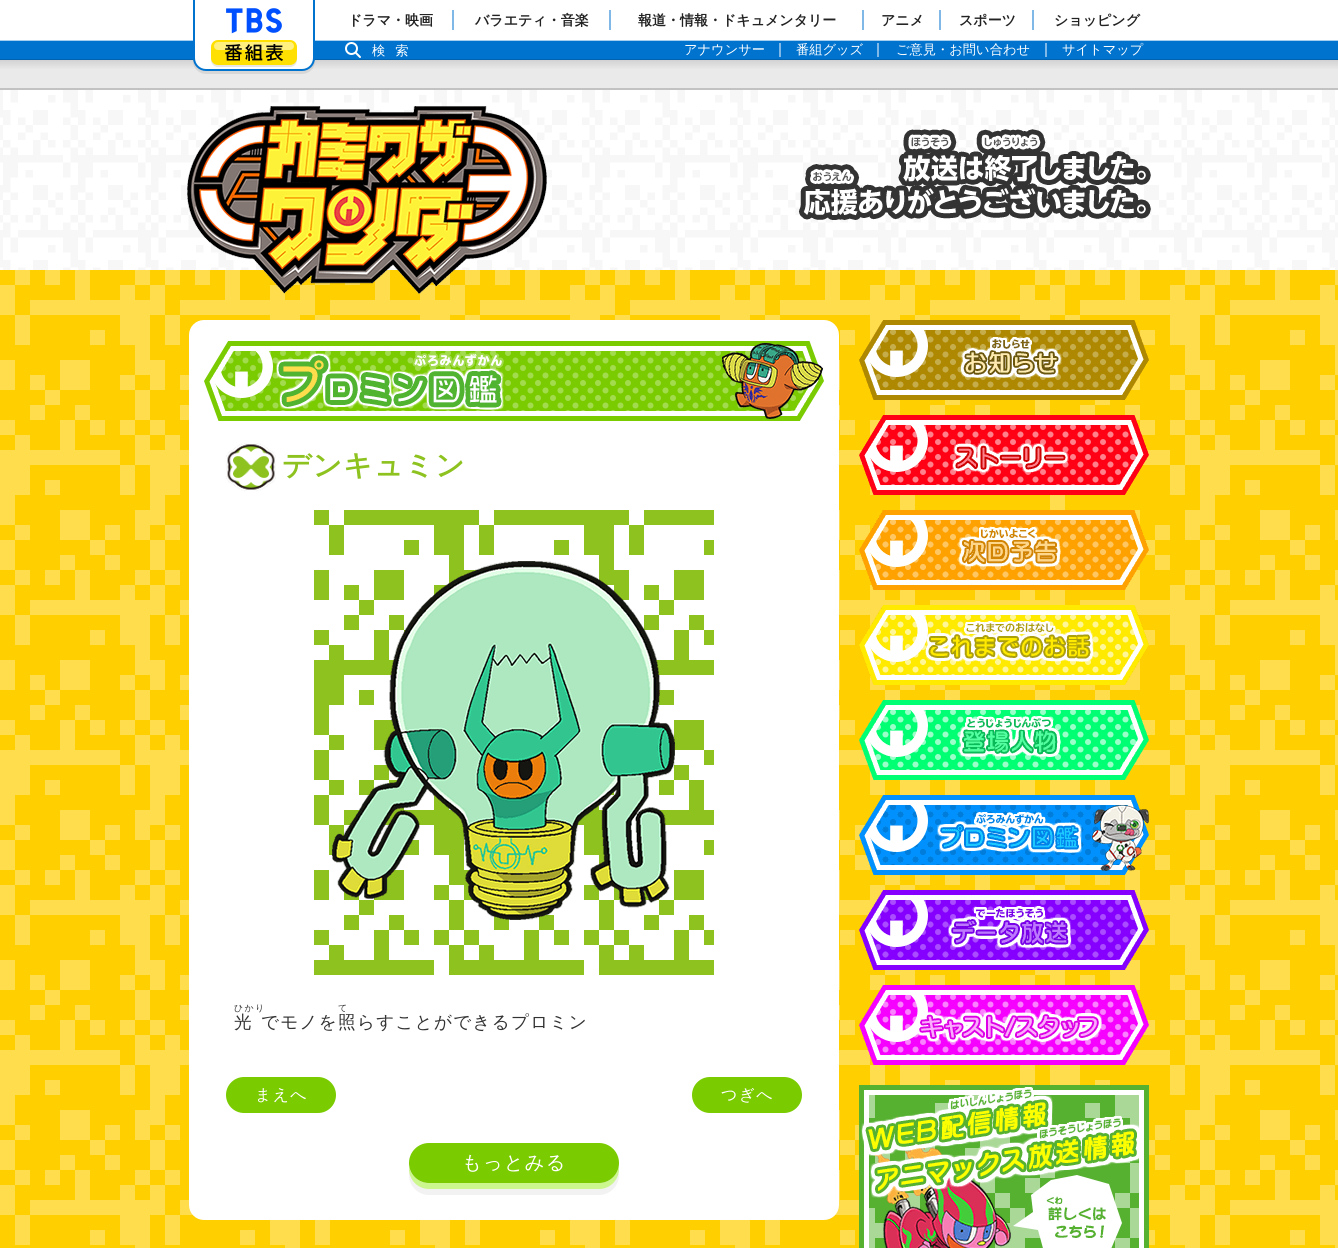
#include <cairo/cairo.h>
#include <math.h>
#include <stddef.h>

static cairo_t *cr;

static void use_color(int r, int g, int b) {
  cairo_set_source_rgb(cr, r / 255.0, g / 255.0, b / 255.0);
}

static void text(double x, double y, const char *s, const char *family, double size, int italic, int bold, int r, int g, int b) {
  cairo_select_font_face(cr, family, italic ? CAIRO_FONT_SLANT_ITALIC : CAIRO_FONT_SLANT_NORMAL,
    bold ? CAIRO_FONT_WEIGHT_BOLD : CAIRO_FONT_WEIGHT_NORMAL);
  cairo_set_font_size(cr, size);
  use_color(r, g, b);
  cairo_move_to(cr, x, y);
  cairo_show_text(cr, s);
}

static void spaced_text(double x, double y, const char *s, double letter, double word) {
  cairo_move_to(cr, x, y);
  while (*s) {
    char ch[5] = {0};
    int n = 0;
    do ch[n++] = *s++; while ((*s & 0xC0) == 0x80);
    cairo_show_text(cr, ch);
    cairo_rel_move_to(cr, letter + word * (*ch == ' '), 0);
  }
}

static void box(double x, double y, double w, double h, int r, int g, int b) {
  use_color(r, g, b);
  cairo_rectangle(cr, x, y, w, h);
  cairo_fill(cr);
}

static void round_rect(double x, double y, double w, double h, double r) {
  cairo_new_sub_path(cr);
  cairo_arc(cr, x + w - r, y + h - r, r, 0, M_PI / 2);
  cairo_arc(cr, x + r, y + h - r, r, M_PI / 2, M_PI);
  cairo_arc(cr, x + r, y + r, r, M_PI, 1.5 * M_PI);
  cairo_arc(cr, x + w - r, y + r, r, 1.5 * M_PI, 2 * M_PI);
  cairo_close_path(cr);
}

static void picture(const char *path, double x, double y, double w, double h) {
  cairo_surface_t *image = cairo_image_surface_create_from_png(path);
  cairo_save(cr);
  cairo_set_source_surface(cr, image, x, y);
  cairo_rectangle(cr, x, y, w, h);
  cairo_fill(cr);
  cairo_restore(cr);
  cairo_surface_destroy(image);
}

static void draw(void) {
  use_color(255, 255, 255);
  cairo_paint(cr);
  picture("img_01.png", 0, 270, 1338, 978);
  box(0, 60, 1338, 28, 234, 234, 234);
  picture("img_02.png", 0, 0, 1338, 69);
  box(0, 88, 1338, 2, 194, 194, 194);
  picture("img_03.png", 193, 0, 122, 74);
  picture("img_04.png", 226, 8, 56, 26);
  box(452, 10, 2, 20, 128, 185, 231);
  box(609, 10, 2, 20, 128, 185, 231);
  box(862, 10, 2, 20, 128, 185, 231);
  box(939, 10, 2, 20, 128, 185, 231);
  box(1032, 10, 2, 20, 128, 185, 231);
  picture("img_05.png", 345, 42, 16, 16);
  box(779, 43, 2, 14, 128, 185, 231);
  box(877, 43, 2, 14, 128, 185, 231);
  box(1045, 43, 2, 14, 128, 185, 231);
  picture("img_06.png", 0, 90, 1338, 180);
  picture("img_07.png", 187, 106, 360, 188);
  picture("img_08.png", 798, 129, 353, 91);
  use_color(255, 255, 255);
  round_rect(191.5, 322.5, 645, 895, 12.5);
  cairo_fill_preserve(cr);
  cairo_set_line_width(cr, 5);
  cairo_stroke(cr);
  picture("img_09.png", 204, 341, 620, 80);
  picture("img_10.png", 226, 443, 50, 49);
  picture("img_11.png", 314, 510, 400, 465);
  use_color(122, 203, 0);
  round_rect(226, 1077, 110, 36, 18);
  cairo_fill(cr);
  round_rect(692, 1077, 110, 36, 18);
  cairo_fill(cr);
  use_color(242, 242, 242);
  cairo_new_path(cr);
  cairo_move_to(cr, 410, 1169);
  cairo_line_to(cr, 409, 1175);
  cairo_curve_to(cr, 409, 1186, 418, 1195, 429, 1195);
  cairo_line_to(cr, 599, 1195);
  cairo_curve_to(cr, 610, 1195, 619, 1186, 619, 1175);
  cairo_line_to(cr, 618, 1169);
  cairo_curve_to(cr, 616, 1177, 608, 1183, 599, 1183);
  cairo_line_to(cr, 429, 1183);
  cairo_curve_to(cr, 420, 1183, 412, 1177, 410, 1169);
  cairo_close_path(cr);
  cairo_fill(cr);
  use_color(204, 246, 142);
  cairo_new_path(cr);
  cairo_move_to(cr, 409, 1166);
  cairo_line_to(cr, 409, 1169);
  cairo_curve_to(cr, 409, 1180, 418, 1189, 429, 1189);
  cairo_line_to(cr, 599, 1189);
  cairo_curve_to(cr, 610, 1189, 619, 1180, 619, 1169);
  cairo_line_to(cr, 619, 1166);
  cairo_curve_to(cr, 617, 1176, 609, 1183, 599, 1183);
  cairo_line_to(cr, 429, 1183);
  cairo_curve_to(cr, 419, 1183, 411, 1176, 409, 1166);
  cairo_close_path(cr);
  cairo_fill(cr);
  use_color(122, 203, 0);
  round_rect(409, 1143, 210, 40, 20);
  cairo_fill(cr);
  picture("img_12.png", 859, 320, 290, 80);
  picture("img_13.png", 859, 415, 290, 80);
  picture("img_14.png", 859, 510, 290, 80);
  picture("img_15.png", 859, 605, 290, 80);
  picture("img_16.png", 859, 700, 290, 80);
  picture("img_17.png", 859, 795, 290, 80);
  picture("img_18.png", 859, 890, 290, 80);
  picture("img_19.png", 859, 985, 290, 80);
  picture("img_20.png", 859, 1085, 290, 163);
  text(348, 25, "ドラマ・映画", "WenQuanYi Zen Hei", 14, 0, 1, 34, 34, 34);
  text(475, 25, "バラエティ・音楽", "WenQuanYi Zen Hei", 14, 0, 1, 34, 34, 34);
  text(638, 25, "報道・情報・ドキュメンタリー", "WenQuanYi Zen Hei", 14, 0, 1, 34, 34, 34);
  text(881, 25, "アニメ", "WenQuanYi Zen Hei", 14, 0, 1, 34, 34, 34);
  text(959, 25, "スポーツ", "WenQuanYi Zen Hei", 14, 0, 1, 34, 34, 34);
  text(1054, 25, "ショッピング", "WenQuanYi Zen Hei", 14, 0, 1, 34, 34, 34);
  cairo_select_font_face(cr, "WenQuanYi Zen Hei Medium", CAIRO_FONT_SLANT_NORMAL, CAIRO_FONT_WEIGHT_NORMAL);
  cairo_set_font_size(cr, 13.25);
  use_color(255, 255, 255);
  spaced_text(372, 55, "検索", 10, 0);
  text(684, 54, "アナウンサー", "WenQuanYi Zen Hei Medium", 13.25, 0, 0, 255, 255, 255);
  text(796, 54, "番組グッズ", "WenQuanYi Zen Hei Medium", 13.25, 0, 0, 255, 255, 255);
  text(896, 54, "ご意見・お問い合わせ", "WenQuanYi Zen Hei Medium", 13.25, 0, 0, 255, 255, 255);
  text(1062, 54, "サイトマップ", "WenQuanYi Zen Hei Medium", 13.25, 0, 0, 255, 255, 255);
  cairo_select_font_face(cr, "WenQuanYi Zen Hei", CAIRO_FONT_SLANT_NORMAL, CAIRO_FONT_WEIGHT_BOLD);
  cairo_set_font_size(cr, 28.75);
  use_color(141, 194, 31);
  spaced_text(282, 475, "デンキュミン", 1.25, 0);
  cairo_select_font_face(cr, "WenQuanYi Zen Hei Medium", CAIRO_FONT_SLANT_NORMAL, CAIRO_FONT_WEIGHT_NORMAL);
  cairo_set_font_size(cr, 9);
  use_color(51, 51, 51);
  spaced_text(234, 1011, "ひかり", 1.25, 0);
  cairo_set_font_size(cr, 17.6);
  spaced_text(234, 1028, "光", 1.25, 0);
  cairo_set_font_size(cr, 9);
  spaced_text(338, 1011, "て", 1.25, 0);
  cairo_set_font_size(cr, 17.6);
  spaced_text(261, 1028, "でモノを照らすことができるプロミン", 1.25, 0);
  cairo_set_font_size(cr, 16);
  use_color(255, 255, 255);
  spaced_text(255, 1100, "まえへ", 1.25, 0);
  spaced_text(721, 1100, "つぎへ", 1.25, 0);
  cairo_set_font_size(cr, 19.25);
  spaced_text(462, 1169, "もっとみる", 1.25, 0);
}

int main(void) {
  cairo_surface_t *surface = cairo_image_surface_create(CAIRO_FORMAT_RGB24, 1338, 1248);
  cr = cairo_create(surface);
  cairo_font_options_t *options = cairo_font_options_create();
  cairo_font_options_set_hint_metrics(options, CAIRO_HINT_METRICS_OFF);
  cairo_font_options_set_hint_style(options, CAIRO_HINT_STYLE_NONE);
  cairo_set_font_options(cr, options);
  cairo_set_miter_limit(cr, 4);
  draw();
  cairo_surface_write_to_png(surface, "out.png");
  cairo_font_options_destroy(options);
  cairo_destroy(cr);
  cairo_surface_destroy(surface);
  return 0;
}
